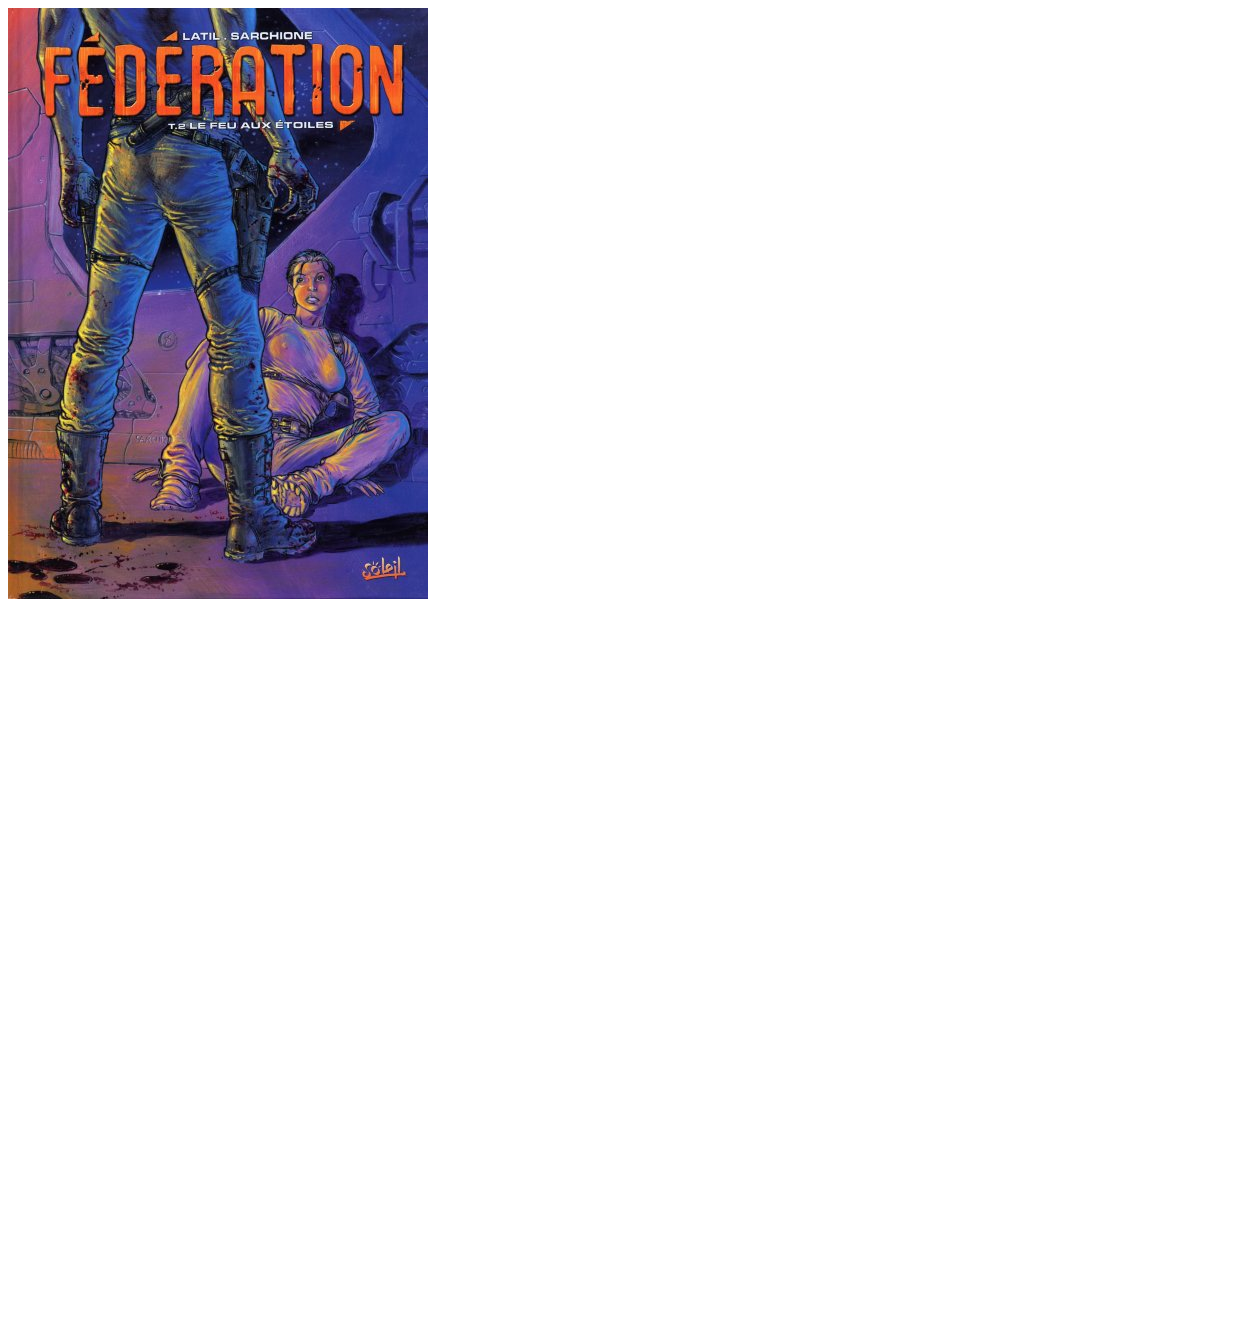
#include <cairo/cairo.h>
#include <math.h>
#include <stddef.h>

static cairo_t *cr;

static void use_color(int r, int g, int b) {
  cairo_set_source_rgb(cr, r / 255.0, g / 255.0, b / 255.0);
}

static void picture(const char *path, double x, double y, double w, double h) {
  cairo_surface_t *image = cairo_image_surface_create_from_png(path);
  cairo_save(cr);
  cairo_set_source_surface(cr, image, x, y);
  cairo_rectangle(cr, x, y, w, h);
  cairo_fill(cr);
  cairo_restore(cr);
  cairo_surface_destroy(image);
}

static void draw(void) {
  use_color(255, 255, 255);
  cairo_paint(cr);
  picture("img_01.png", 8, 8, 420, 591);
}

int main(void) {
  cairo_surface_t *surface = cairo_image_surface_create(CAIRO_FORMAT_RGB24, 1247, 1321);
  cr = cairo_create(surface);
  cairo_font_options_t *options = cairo_font_options_create();
  cairo_font_options_set_hint_metrics(options, CAIRO_HINT_METRICS_OFF);
  cairo_font_options_set_hint_style(options, CAIRO_HINT_STYLE_NONE);
  cairo_set_font_options(cr, options);
  cairo_set_miter_limit(cr, 4);
  draw();
  cairo_surface_write_to_png(surface, "out.png");
  cairo_font_options_destroy(options);
  cairo_destroy(cr);
  cairo_surface_destroy(surface);
  return 0;
}
